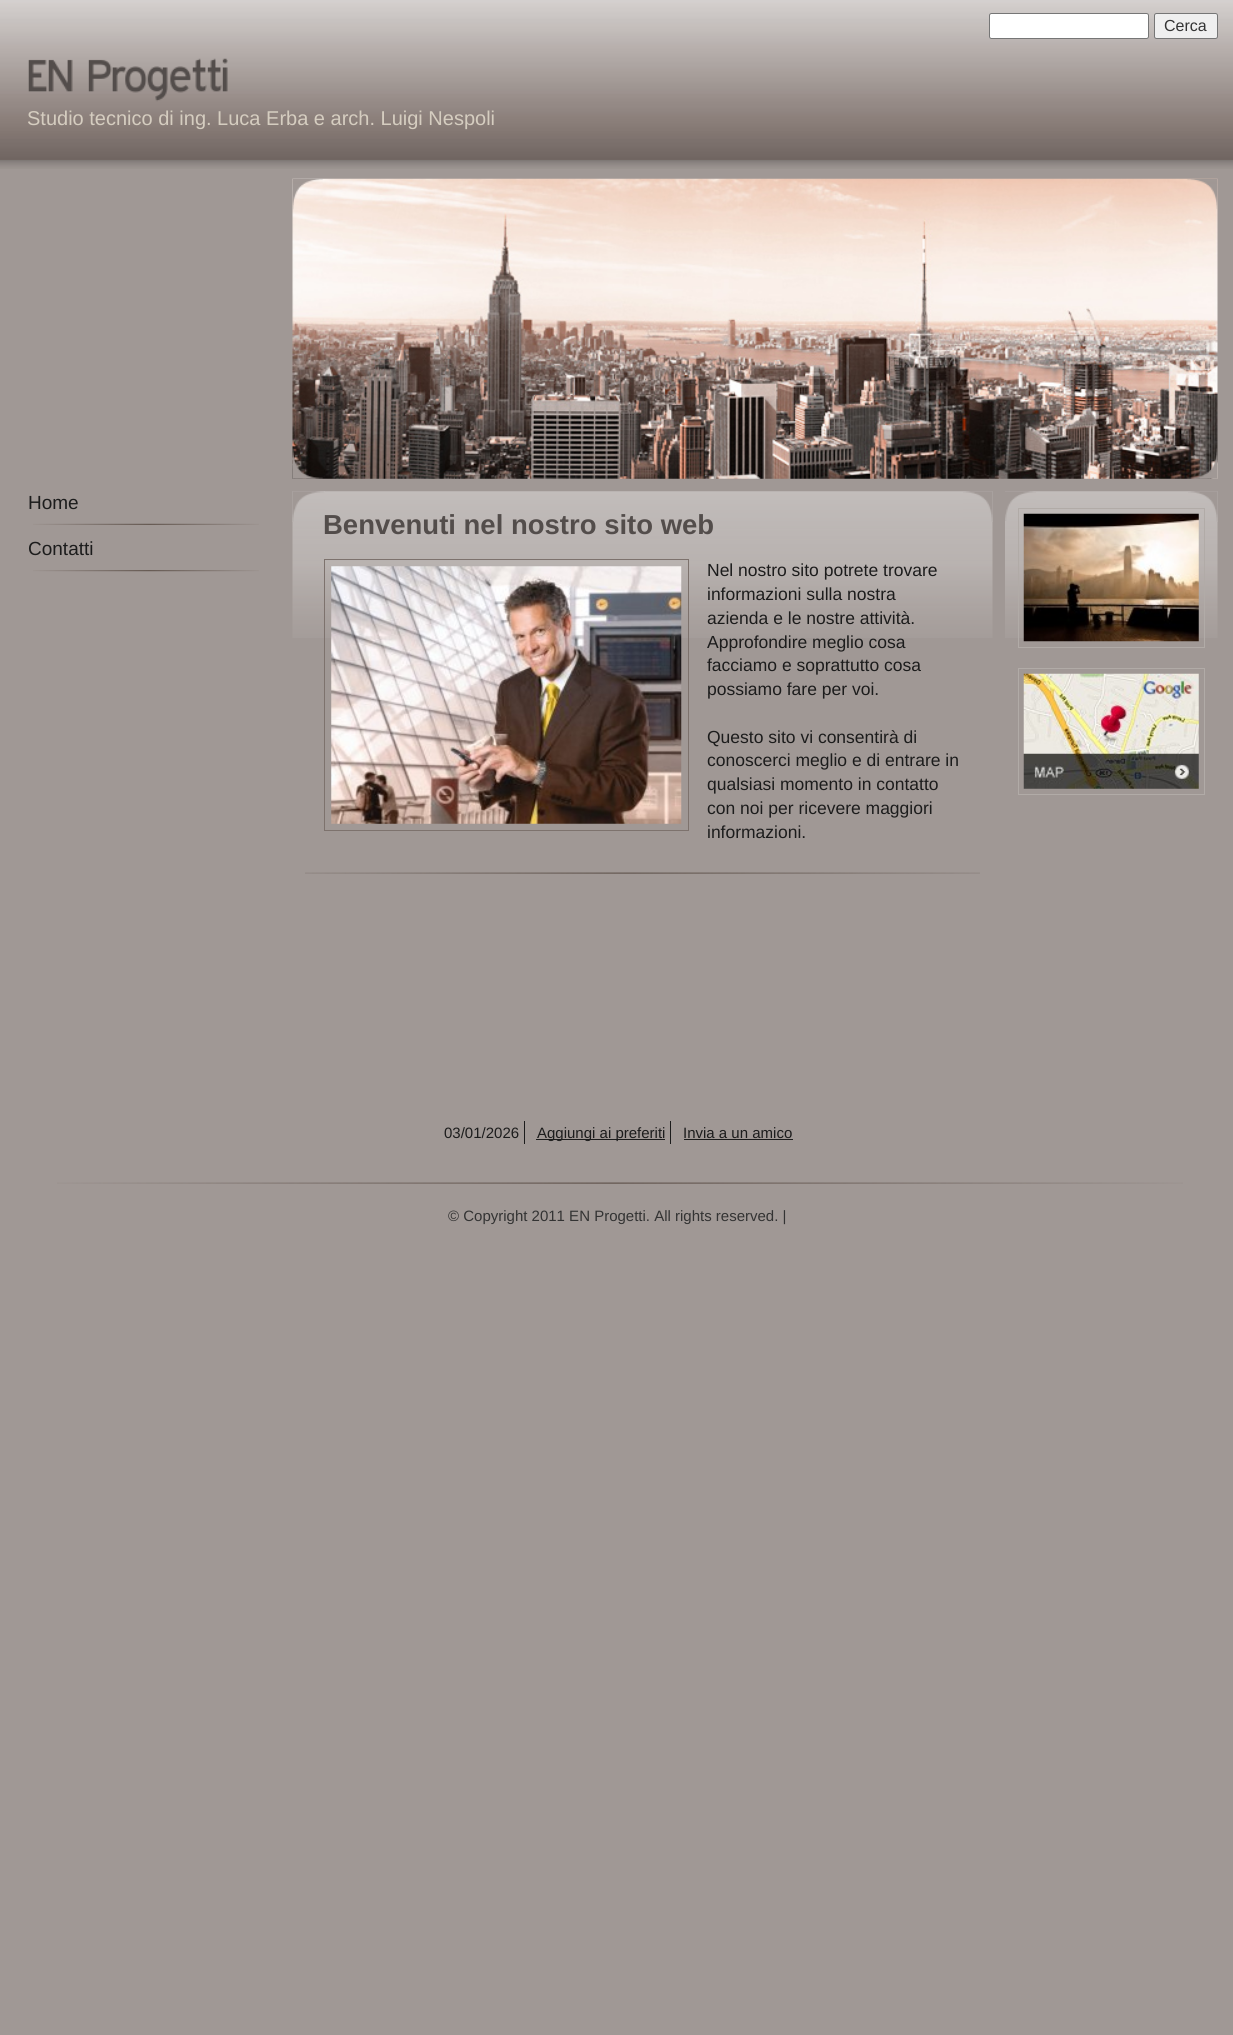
#include <cairo/cairo.h>
#include <math.h>
#include <stddef.h>

static cairo_t *cr;

static void use_color(int r, int g, int b) {
  cairo_set_source_rgb(cr, r / 255.0, g / 255.0, b / 255.0);
}

static void text(double x, double y, const char *s, const char *family, double size, int italic, int bold, int r, int g, int b) {
  cairo_select_font_face(cr, family, italic ? CAIRO_FONT_SLANT_ITALIC : CAIRO_FONT_SLANT_NORMAL,
    bold ? CAIRO_FONT_WEIGHT_BOLD : CAIRO_FONT_WEIGHT_NORMAL);
  cairo_set_font_size(cr, size);
  use_color(r, g, b);
  cairo_move_to(cr, x, y);
  cairo_show_text(cr, s);
}

static void box(double x, double y, double w, double h, int r, int g, int b) {
  use_color(r, g, b);
  cairo_rectangle(cr, x, y, w, h);
  cairo_fill(cr);
}

static void round_rect(double x, double y, double w, double h, double r) {
  cairo_new_sub_path(cr);
  cairo_arc(cr, x + w - r, y + h - r, r, 0, M_PI / 2);
  cairo_arc(cr, x + r, y + h - r, r, M_PI / 2, M_PI);
  cairo_arc(cr, x + r, y + r, r, M_PI, 1.5 * M_PI);
  cairo_arc(cr, x + w - r, y + r, r, 1.5 * M_PI, 2 * M_PI);
  cairo_close_path(cr);
}

static void picture(const char *path, double x, double y, double w, double h) {
  cairo_surface_t *image = cairo_image_surface_create_from_png(path);
  cairo_save(cr);
  cairo_set_source_surface(cr, image, x, y);
  cairo_rectangle(cr, x, y, w, h);
  cairo_fill(cr);
  cairo_restore(cr);
  cairo_surface_destroy(image);
}

static void draw(void) {
  use_color(160, 152, 149);
  cairo_paint(cr);
  picture("img_01.png", 0, 0, 1233, 169);
  use_color(255, 255, 255);
  round_rect(989.5, 13.5, 159, 25, 2);
  cairo_fill_preserve(cr);
  use_color(118, 118, 118);
  cairo_set_line_width(cr, 1);
  cairo_stroke(cr);
  use_color(239, 239, 239);
  round_rect(1154.5, 13.5, 63, 25, 2);
  cairo_fill_preserve(cr);
  use_color(118, 118, 118);
  cairo_stroke(cr);
  picture("img_02.png", 28, 58, 200, 44);
  picture("img_03.png", 292, 178, 926, 301);
  picture("img_04.png", 292, 178, 31, 32);
  picture("img_05.png", 1187, 178, 31, 31);
  picture("img_06.png", 292, 448, 31, 31);
  picture("img_07.png", 1187, 448, 31, 31);
  picture("img_08.png", 33, 523, 226, 2);
  picture("img_09.png", 33, 570, 226, 2);
  picture("img_10.png", 292, 491, 701, 147);
  picture("img_11.png", 963, 491, 30, 31);
  picture("img_12.png", 292, 491, 33, 31);
  cairo_rectangle(cr, 324.5, 559.5, 364, 271);
  use_color(125, 114, 109);
  cairo_stroke(cr);
  picture("img_13.png", 331, 566, 351, 258);
  picture("img_14.png", 305, 872, 675, 2);
  picture("img_15.png", 1005, 491, 213, 147);
  picture("img_11.png", 1188, 491, 30, 31);
  picture("img_16.png", 1005, 491, 31, 30);
  cairo_rectangle(cr, 1018.5, 508.5, 186, 139);
  use_color(177, 171, 167);
  cairo_stroke(cr);
  picture("img_17.png", 1023, 513, 176, 129);
  cairo_rectangle(cr, 1018.5, 668.5, 186, 126);
  cairo_stroke(cr);
  picture("img_18.png", 1023, 673, 176, 116);
  box(524, 1121, 1, 23, 28, 28, 28);
  box(670, 1121, 1, 23, 28, 28, 28);
  box(536, 1139, 129, 1, 28, 28, 28);
  box(684, 1139, 109, 1, 28, 28, 28);
  picture("img_19.png", 57, 1182, 1126, 2);
  text(1164, 31, "Cerca", "Liberation Sans", 16, 0, 0, 51, 51, 51);
  text(27, 125, "Studio tecnico di ing. Luca Erba e arch. Luigi Nespoli", "Liberation Sans", 20, 0, 0, 213, 205, 192);
  text(28, 509, "Home", "Liberation Sans", 19, 0, 0, 28, 28, 28);
  text(28, 555, "Contatti", "Liberation Sans", 19, 0, 0, 28, 28, 28);
  text(323, 534, "Benvenuti nel nostro sito web", "Liberation Sans", 27.5, 0, 1, 83, 77, 75);
  text(707, 576, "Nel nostro sito potrete trovare", "Liberation Sans", 17.5, 0, 0, 28, 28, 28);
  text(707, 600, "informazioni sulla nostra", "Liberation Sans", 17.5, 0, 0, 28, 28, 28);
  text(707, 624, "azienda e le nostre attività.", "Liberation Sans", 17.5, 0, 0, 28, 28, 28);
  text(707, 648, "Approfondire meglio cosa", "Liberation Sans", 17.5, 0, 0, 28, 28, 28);
  text(707, 671, "facciamo e soprattutto cosa", "Liberation Sans", 17.5, 0, 0, 28, 28, 28);
  text(707, 695, "possiamo fare per voi.", "Liberation Sans", 17.5, 0, 0, 28, 28, 28);
  text(707, 743, "Questo sito vi consentirà di", "Liberation Sans", 17.5, 0, 0, 28, 28, 28);
  text(707, 766, "conoscerci meglio e di entrare in", "Liberation Sans", 17.5, 0, 0, 28, 28, 28);
  text(707, 790, "qualsiasi momento in contatto", "Liberation Sans", 17.5, 0, 0, 28, 28, 28);
  text(707, 814, "con noi per ricevere maggiori", "Liberation Sans", 17.5, 0, 0, 28, 28, 28);
  text(707, 838, "informazioni.", "Liberation Sans", 17.5, 0, 0, 28, 28, 28);
  text(444, 1138, "03/01/2026", "Liberation Sans", 15, 0, 0, 28, 28, 28);
  text(537, 1138, "Aggiungi ai preferiti", "Liberation Sans", 15, 0, 0, 28, 28, 28);
  text(683, 1138, "Invia a un amico", "Liberation Sans", 15, 0, 0, 28, 28, 28);
  text(448, 1221, "© Copyright 2011 EN Progetti. All rights reserved. |", "Liberation Sans", 15, 0, 0, 51, 51, 51);
}

int main(void) {
  cairo_surface_t *surface = cairo_image_surface_create(CAIRO_FORMAT_RGB24, 1233, 2035);
  cr = cairo_create(surface);
  cairo_font_options_t *options = cairo_font_options_create();
  cairo_font_options_set_hint_metrics(options, CAIRO_HINT_METRICS_OFF);
  cairo_font_options_set_hint_style(options, CAIRO_HINT_STYLE_NONE);
  cairo_set_font_options(cr, options);
  cairo_set_miter_limit(cr, 4);
  draw();
  cairo_surface_write_to_png(surface, "out.png");
  cairo_font_options_destroy(options);
  cairo_destroy(cr);
  cairo_surface_destroy(surface);
  return 0;
}
